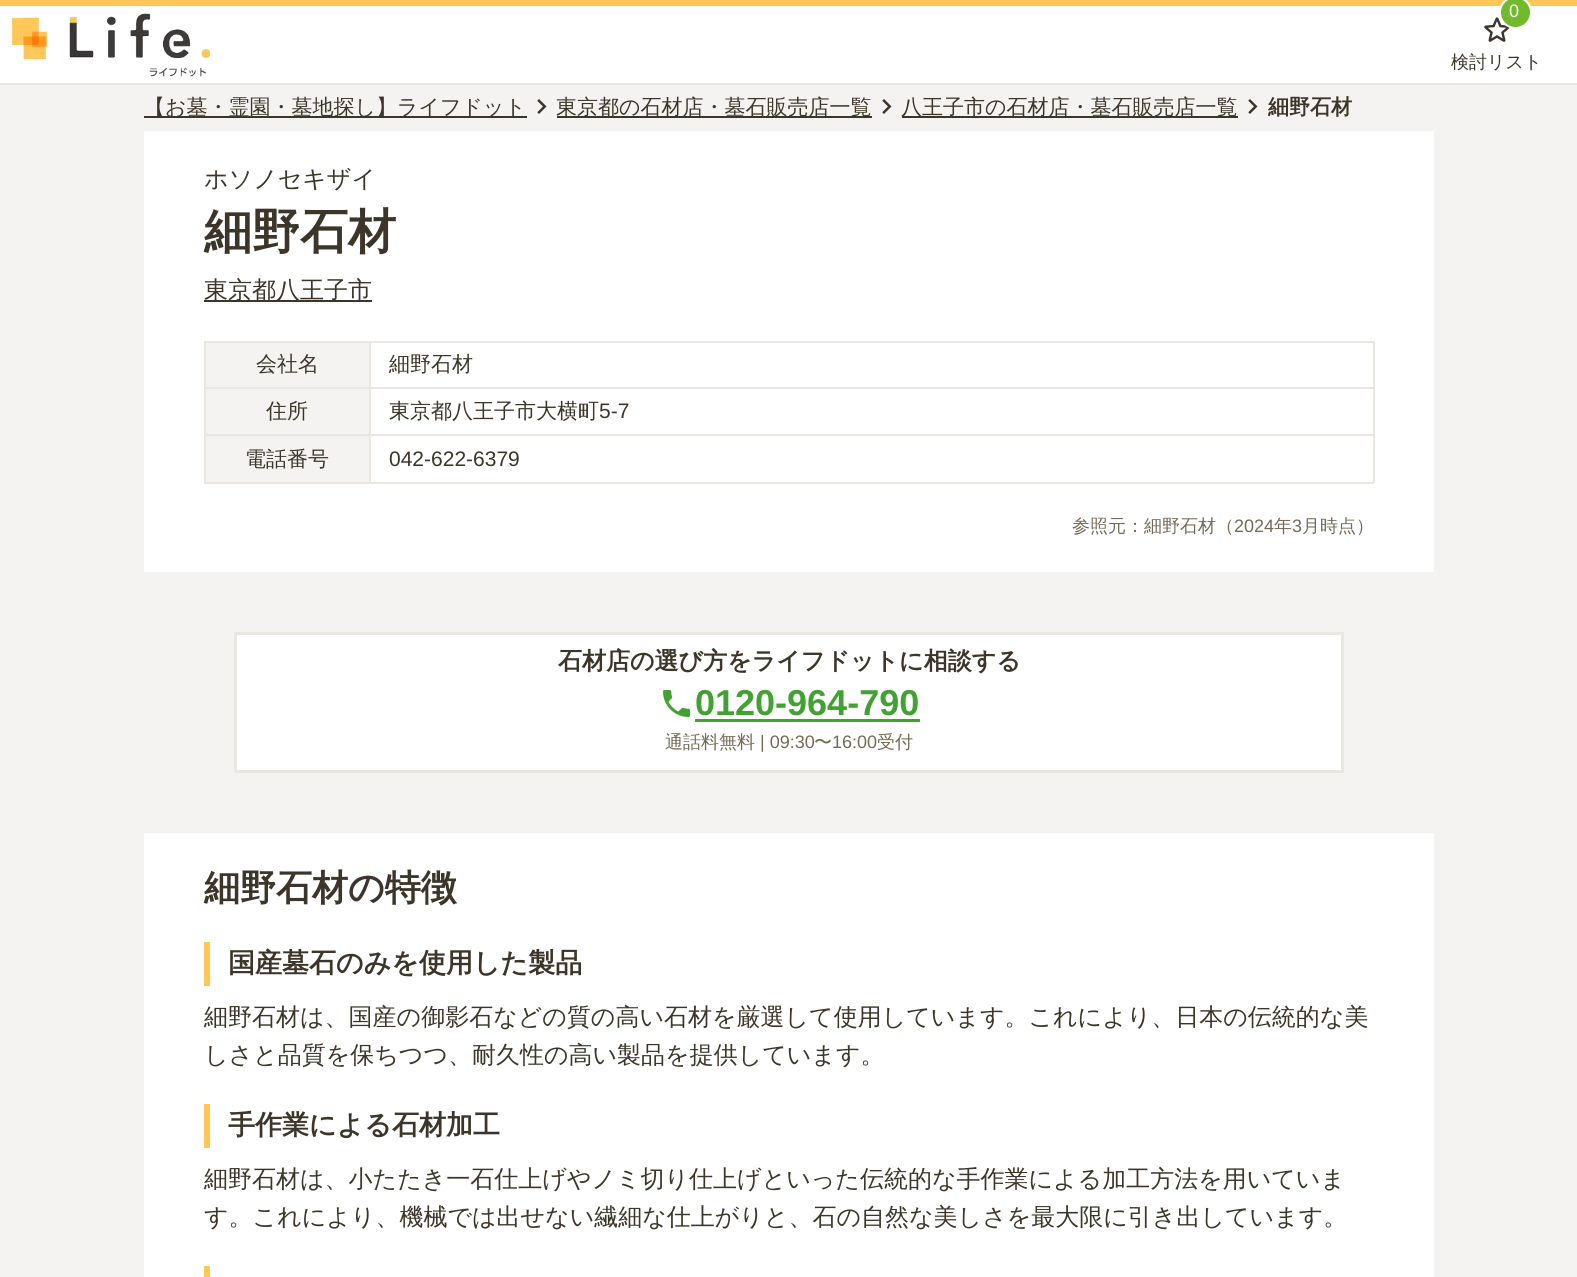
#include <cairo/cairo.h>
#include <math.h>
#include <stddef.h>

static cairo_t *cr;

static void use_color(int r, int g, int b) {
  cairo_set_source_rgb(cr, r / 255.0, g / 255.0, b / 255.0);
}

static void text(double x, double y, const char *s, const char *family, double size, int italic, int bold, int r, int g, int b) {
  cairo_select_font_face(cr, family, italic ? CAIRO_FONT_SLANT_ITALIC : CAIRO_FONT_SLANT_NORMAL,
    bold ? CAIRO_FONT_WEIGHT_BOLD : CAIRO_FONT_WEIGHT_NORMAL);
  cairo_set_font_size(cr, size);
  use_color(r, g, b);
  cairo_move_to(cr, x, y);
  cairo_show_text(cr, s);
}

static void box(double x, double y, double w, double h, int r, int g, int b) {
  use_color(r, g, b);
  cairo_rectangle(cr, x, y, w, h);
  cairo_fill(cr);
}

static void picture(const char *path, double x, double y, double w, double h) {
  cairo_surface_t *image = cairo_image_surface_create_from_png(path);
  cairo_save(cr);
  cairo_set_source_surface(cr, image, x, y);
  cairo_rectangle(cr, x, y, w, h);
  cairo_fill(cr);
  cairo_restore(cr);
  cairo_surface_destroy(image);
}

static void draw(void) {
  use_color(244, 243, 241);
  cairo_paint(cr);
  box(0, 6, 1577, 77, 255, 255, 255);
  box(0, 0, 1577, 6, 255, 199, 88);
  box(0, 83, 1577, 2, 234, 231, 226);
  picture("img_01.png", 12, 13, 198, 64);
  picture("img_02.png", 1484, 17, 26, 25);
  use_color(112, 186, 44);
  cairo_arc(cr, 1515.5, 12.5, 15.5, 0, 2 * M_PI);
  cairo_fill_preserve(cr);
  use_color(255, 255, 255);
  cairo_stroke(cr);
  box(144, 116, 383, 2, 61, 53, 41);
  picture("img_03.png", 537, 99, 10, 15);
  box(557, 116, 315, 2, 61, 53, 41);
  picture("img_03.png", 882, 99, 10, 15);
  box(902, 116, 336, 2, 61, 53, 41);
  picture("img_03.png", 1248, 99, 10, 15);
  box(144, 131, 1290, 441, 255, 255, 255);
  box(204, 300, 168, 2, 61, 53, 41);
  box(206, 343, 163, 44, 244, 243, 241);
  box(369, 341, 1005, 2, 234, 231, 226);
  box(369, 387, 1005, 2, 234, 231, 226);
  box(369, 434, 1005, 2, 234, 231, 226);
  box(1373, 434, 2, 49, 234, 231, 226);
  box(369, 482, 1005, 2, 234, 231, 226);
  box(369, 434, 2, 49, 234, 231, 226);
  box(204, 434, 167, 2, 234, 231, 226);
  box(369, 387, 2, 48, 234, 231, 226);
  box(204, 387, 167, 2, 234, 231, 226);
  box(369, 341, 2, 48, 234, 231, 226);
  box(204, 341, 167, 2, 234, 231, 226);
  box(204, 482, 167, 2, 234, 231, 226);
  box(204, 434, 2, 49, 234, 231, 226);
  box(204, 387, 2, 48, 234, 231, 226);
  box(204, 341, 2, 48, 234, 231, 226);
  box(1373, 387, 2, 48, 234, 231, 226);
  box(1373, 341, 2, 48, 234, 231, 226);
  box(206, 389, 163, 45, 244, 243, 241);
  box(206, 436, 163, 46, 244, 243, 241);
  use_color(255, 255, 255);
  cairo_rectangle(cr, 235.5, 633.5, 1107, 138);
  cairo_fill_preserve(cr);
  use_color(234, 231, 226);
  cairo_set_line_width(cr, 3);
  cairo_stroke(cr);
  picture("img_04.png", 663, 690, 27, 27);
  box(695, 719, 225, 3, 65, 162, 51);
  box(144, 833, 1290, 444, 255, 255, 255);
  box(204, 942, 6, 44, 255, 199, 88);
  box(204, 1104, 6, 44, 255, 199, 88);
  box(204, 1266, 6, 11, 255, 199, 88);
  text(1509, 17, "0", "Liberation Sans", 18, 0, 0, 255, 255, 255);
  text(1451, 68, "検討リスト", "WenQuanYi Zen Hei Medium", 18, 0, 0, 61, 53, 41);
  text(144, 114, "【お墓・霊園・墓地探し】ライフドット", "WenQuanYi Zen Hei Medium", 21, 0, 0, 61, 53, 41);
  text(556, 114, "東京都の石材店・墓石販売店一覧", "WenQuanYi Zen Hei Medium", 21, 0, 0, 61, 53, 41);
  text(901, 114, "八王子市の石材店・墓石販売店一覧", "WenQuanYi Zen Hei Medium", 21, 0, 0, 61, 53, 41);
  text(1268, 114, "細野石材", "WenQuanYi Zen Hei", 21, 0, 1, 61, 53, 41);
  text(204, 187, "ホソノセキザイ", "WenQuanYi Zen Hei Medium", 24, 0, 0, 61, 53, 41);
  text(204, 248, "細野石材", "WenQuanYi Zen Hei", 48, 0, 1, 61, 53, 41);
  text(204, 298, "東京都八王子市", "WenQuanYi Zen Hei Medium", 24, 0, 0, 61, 53, 41);
  text(256, 371, "会社名", "WenQuanYi Zen Hei Medium", 21, 0, 0, 61, 53, 41);
  text(389, 371, "細野石材", "WenQuanYi Zen Hei Medium", 21, 0, 0, 61, 53, 41);
  text(266, 418, "住所", "WenQuanYi Zen Hei Medium", 21, 0, 0, 61, 53, 41);
  text(389, 418, "東京都八王子市大横町", "WenQuanYi Zen Hei Medium", 21, 0, 0, 61, 53, 41);
  text(599, 418, "5-7", "Liberation Sans", 21, 0, 0, 61, 53, 41);
  text(245, 466, "電話番号", "WenQuanYi Zen Hei Medium", 21, 0, 0, 61, 53, 41);
  text(389, 466, "042-622-6379", "Liberation Sans", 21, 0, 0, 61, 53, 41);
  text(1072, 532, "参照元：細野石材（", "WenQuanYi Zen Hei Medium", 18, 0, 0, 118, 105, 87);
  text(1234, 532, "2024", "Liberation Sans", 18, 0, 0, 118, 105, 87);
  text(1274, 532, "年", "WenQuanYi Zen Hei Medium", 18, 0, 0, 118, 105, 87);
  text(1292, 532, "3", "Liberation Sans", 18, 0, 0, 118, 105, 87);
  text(1302, 532, "月時点）", "WenQuanYi Zen Hei Medium", 18, 0, 0, 118, 105, 87);
  text(558, 669, "石材店の選び方をライフドットに相談する", "WenQuanYi Zen Hei", 24, 0, 1, 61, 53, 41);
  text(695, 715, "0120-964-790", "Liberation Sans", 36, 0, 1, 65, 162, 51);
  text(665, 748, "通話料無料", "WenQuanYi Zen Hei Medium", 18, 0, 0, 118, 105, 87);
  text(760, 748, "| 09:30", "Liberation Sans", 18, 0, 0, 118, 105, 87);
  text(814, 748, "〜", "WenQuanYi Zen Hei Medium", 18, 0, 0, 118, 105, 87);
  text(832, 748, "16:00", "Liberation Sans", 18, 0, 0, 118, 105, 87);
  text(877, 748, "受付", "WenQuanYi Zen Hei Medium", 18, 0, 0, 118, 105, 87);
  text(204, 900, "細野石材の特徴", "WenQuanYi Zen Hei", 36, 0, 1, 61, 53, 41);
  text(228, 972, "国産墓石のみを使用した製品", "WenQuanYi Zen Hei", 27, 0, 1, 61, 53, 41);
  text(204, 1025, "細野石材は、国産の御影石などの質の高い石材を厳選して使用しています。これにより、日本の伝統的な美", "WenQuanYi Zen Hei Medium", 24, 0, 0, 61, 53, 41);
  text(204, 1063, "しさと品質を保ちつつ、耐久性の高い製品を提供しています。", "WenQuanYi Zen Hei Medium", 24, 0, 0, 61, 53, 41);
  text(228, 1134, "手作業による石材加工", "WenQuanYi Zen Hei", 27, 0, 1, 61, 53, 41);
  text(204, 1187, "細野石材は、小たたき一石仕上げやノミ切り仕上げといった伝統的な手作業による加工方法を用いていま", "WenQuanYi Zen Hei Medium", 24, 0, 0, 61, 53, 41);
  text(204, 1225, "す。これにより、機械では出せない繊細な仕上がりと、石の自然な美しさを最大限に引き出しています。", "WenQuanYi Zen Hei Medium", 24, 0, 0, 61, 53, 41);
}

int main(void) {
  cairo_surface_t *surface = cairo_image_surface_create(CAIRO_FORMAT_RGB24, 1577, 1277);
  cr = cairo_create(surface);
  cairo_font_options_t *options = cairo_font_options_create();
  cairo_font_options_set_hint_metrics(options, CAIRO_HINT_METRICS_OFF);
  cairo_font_options_set_hint_style(options, CAIRO_HINT_STYLE_NONE);
  cairo_set_font_options(cr, options);
  cairo_set_miter_limit(cr, 4);
  draw();
  cairo_surface_write_to_png(surface, "out.png");
  cairo_font_options_destroy(options);
  cairo_destroy(cr);
  cairo_surface_destroy(surface);
  return 0;
}
